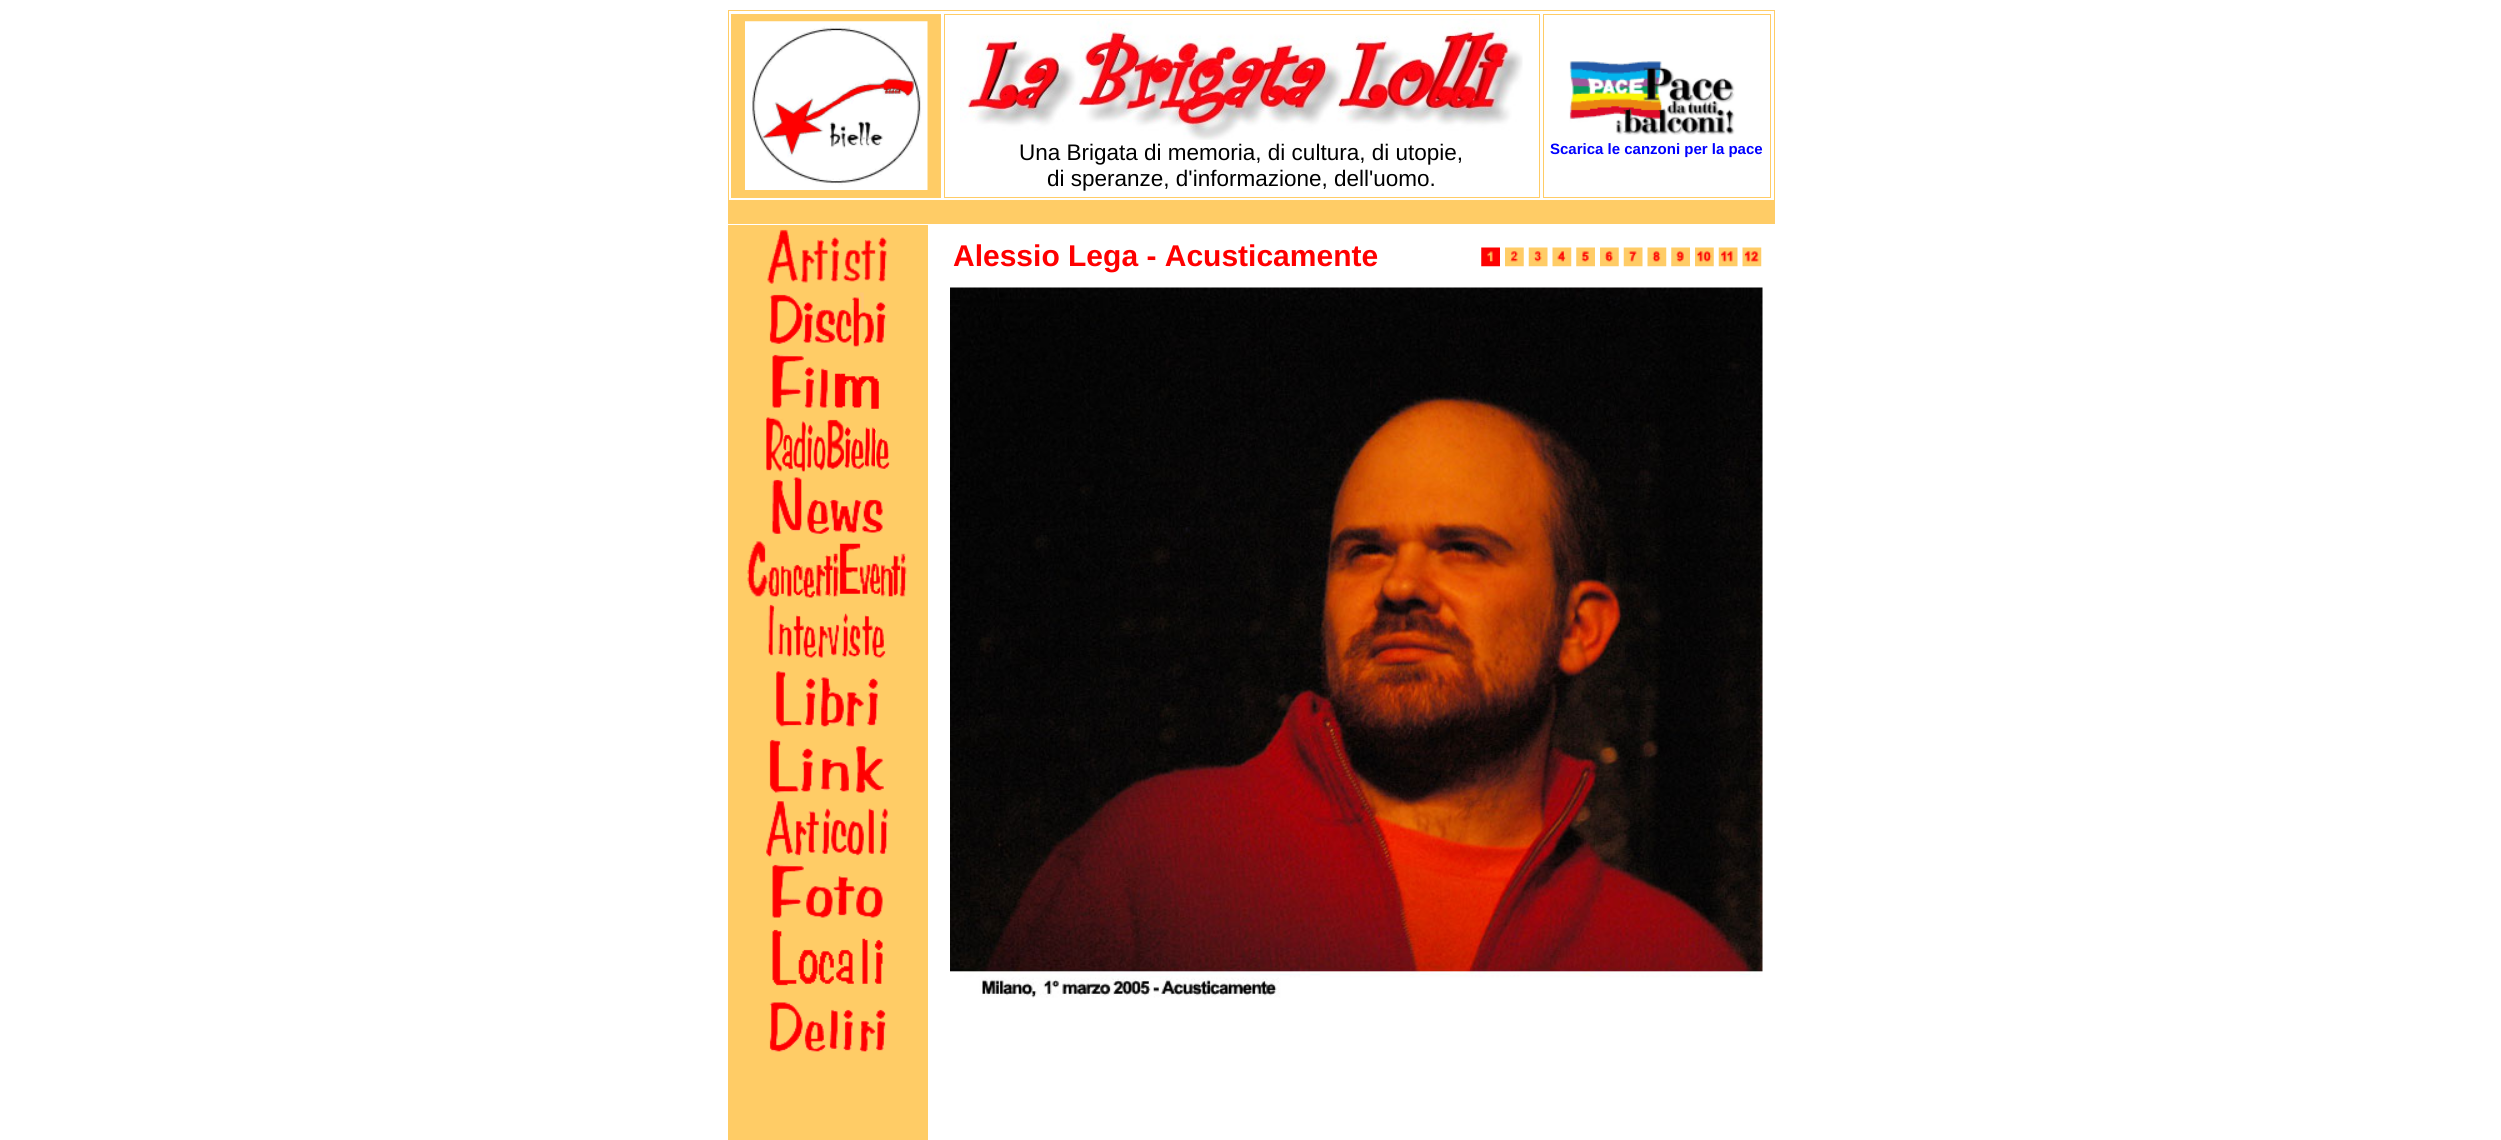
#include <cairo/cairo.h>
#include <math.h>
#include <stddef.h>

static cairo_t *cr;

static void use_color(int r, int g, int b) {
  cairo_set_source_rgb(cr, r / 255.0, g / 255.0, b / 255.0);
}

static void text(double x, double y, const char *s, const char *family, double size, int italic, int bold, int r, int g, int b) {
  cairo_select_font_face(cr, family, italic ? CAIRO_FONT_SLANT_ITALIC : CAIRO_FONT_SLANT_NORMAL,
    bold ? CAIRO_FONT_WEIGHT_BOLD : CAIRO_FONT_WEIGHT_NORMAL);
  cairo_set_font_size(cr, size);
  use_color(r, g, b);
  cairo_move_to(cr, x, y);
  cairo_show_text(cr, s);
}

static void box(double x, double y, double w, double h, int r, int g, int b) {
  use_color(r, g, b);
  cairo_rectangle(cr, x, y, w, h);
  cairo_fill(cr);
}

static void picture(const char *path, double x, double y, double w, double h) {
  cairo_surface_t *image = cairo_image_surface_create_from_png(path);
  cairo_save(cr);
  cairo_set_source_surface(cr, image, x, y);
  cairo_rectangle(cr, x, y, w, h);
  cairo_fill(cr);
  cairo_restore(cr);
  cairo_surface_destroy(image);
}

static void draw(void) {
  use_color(255, 255, 255);
  cairo_paint(cr);
  cairo_rectangle(cr, 728.5, 10.5, 1046, 190);
  use_color(255, 204, 102);
  cairo_set_line_width(cr, 1);
  cairo_stroke(cr);
  box(731, 14, 210, 184, 255, 204, 102);
  picture("img_01.png", 745, 21, 183, 169);
  cairo_rectangle(cr, 944.5, 14.5, 595, 183);
  cairo_stroke(cr);
  picture("img_02.png", 960, 19, 563, 121);
  cairo_rectangle(cr, 1543.5, 14.5, 227, 183);
  cairo_stroke(cr);
  picture("img_03.png", 1569, 61, 166, 74);
  box(728, 201, 1047, 23, 255, 204, 102);
  box(728, 225, 200, 915, 255, 204, 102);
  picture("img_04.png", 767, 229, 120, 55);
  picture("img_05.png", 769, 292, 117, 57);
  picture("img_06.png", 772, 354, 107, 55);
  picture("img_07.png", 766, 417, 124, 55);
  picture("img_08.png", 772, 477, 111, 57);
  picture("img_09.png", 747, 541, 160, 57);
  picture("img_10.png", 768, 604, 118, 54);
  picture("img_11.png", 776, 671, 102, 56);
  picture("img_12.png", 769, 739, 116, 54);
  picture("img_13.png", 766, 801, 122, 56);
  picture("img_14.png", 772, 864, 111, 54);
  picture("img_15.png", 772, 929, 111, 57);
  picture("img_16.png", 769, 1002, 117, 50);
  picture("img_17.png", 1481, 247, 19, 20);
  picture("img_18.png", 1505, 247, 19, 20);
  picture("img_19.png", 1528, 247, 20, 20);
  picture("img_20.png", 1552, 247, 20, 20);
  picture("img_21.png", 1576, 247, 19, 20);
  picture("img_22.png", 1600, 247, 19, 20);
  picture("img_23.png", 1623, 247, 20, 20);
  picture("img_24.png", 1647, 247, 20, 20);
  picture("img_25.png", 1671, 247, 19, 20);
  picture("img_26.png", 1695, 247, 19, 20);
  picture("img_27.png", 1718, 247, 20, 20);
  picture("img_28.png", 1742, 247, 20, 20);
  picture("img_29.png", 950, 287, 813, 711);
  text(1019, 160, "Una Brigata di memoria, di cultura, di utopie,", "Liberation Sans", 22.5, 0, 0, 0, 0, 0);
  text(1047, 186, "di speranze, d'informazione, dell'uomo.", "Liberation Sans", 22.5, 0, 0, 0, 0, 0);
  text(1550, 154, "Scarica le canzoni per la pace", "Liberation Sans", 15, 0, 1, 0, 0, 255);
  text(953, 266, "Alessio Lega - Acusticamente", "Liberation Sans", 30, 0, 1, 255, 0, 0);
}

int main(void) {
  cairo_surface_t *surface = cairo_image_surface_create(CAIRO_FORMAT_RGB24, 2501, 1140);
  cr = cairo_create(surface);
  cairo_font_options_t *options = cairo_font_options_create();
  cairo_font_options_set_hint_metrics(options, CAIRO_HINT_METRICS_OFF);
  cairo_font_options_set_hint_style(options, CAIRO_HINT_STYLE_NONE);
  cairo_set_font_options(cr, options);
  cairo_set_miter_limit(cr, 4);
  draw();
  cairo_surface_write_to_png(surface, "out.png");
  cairo_font_options_destroy(options);
  cairo_destroy(cr);
  cairo_surface_destroy(surface);
  return 0;
}
